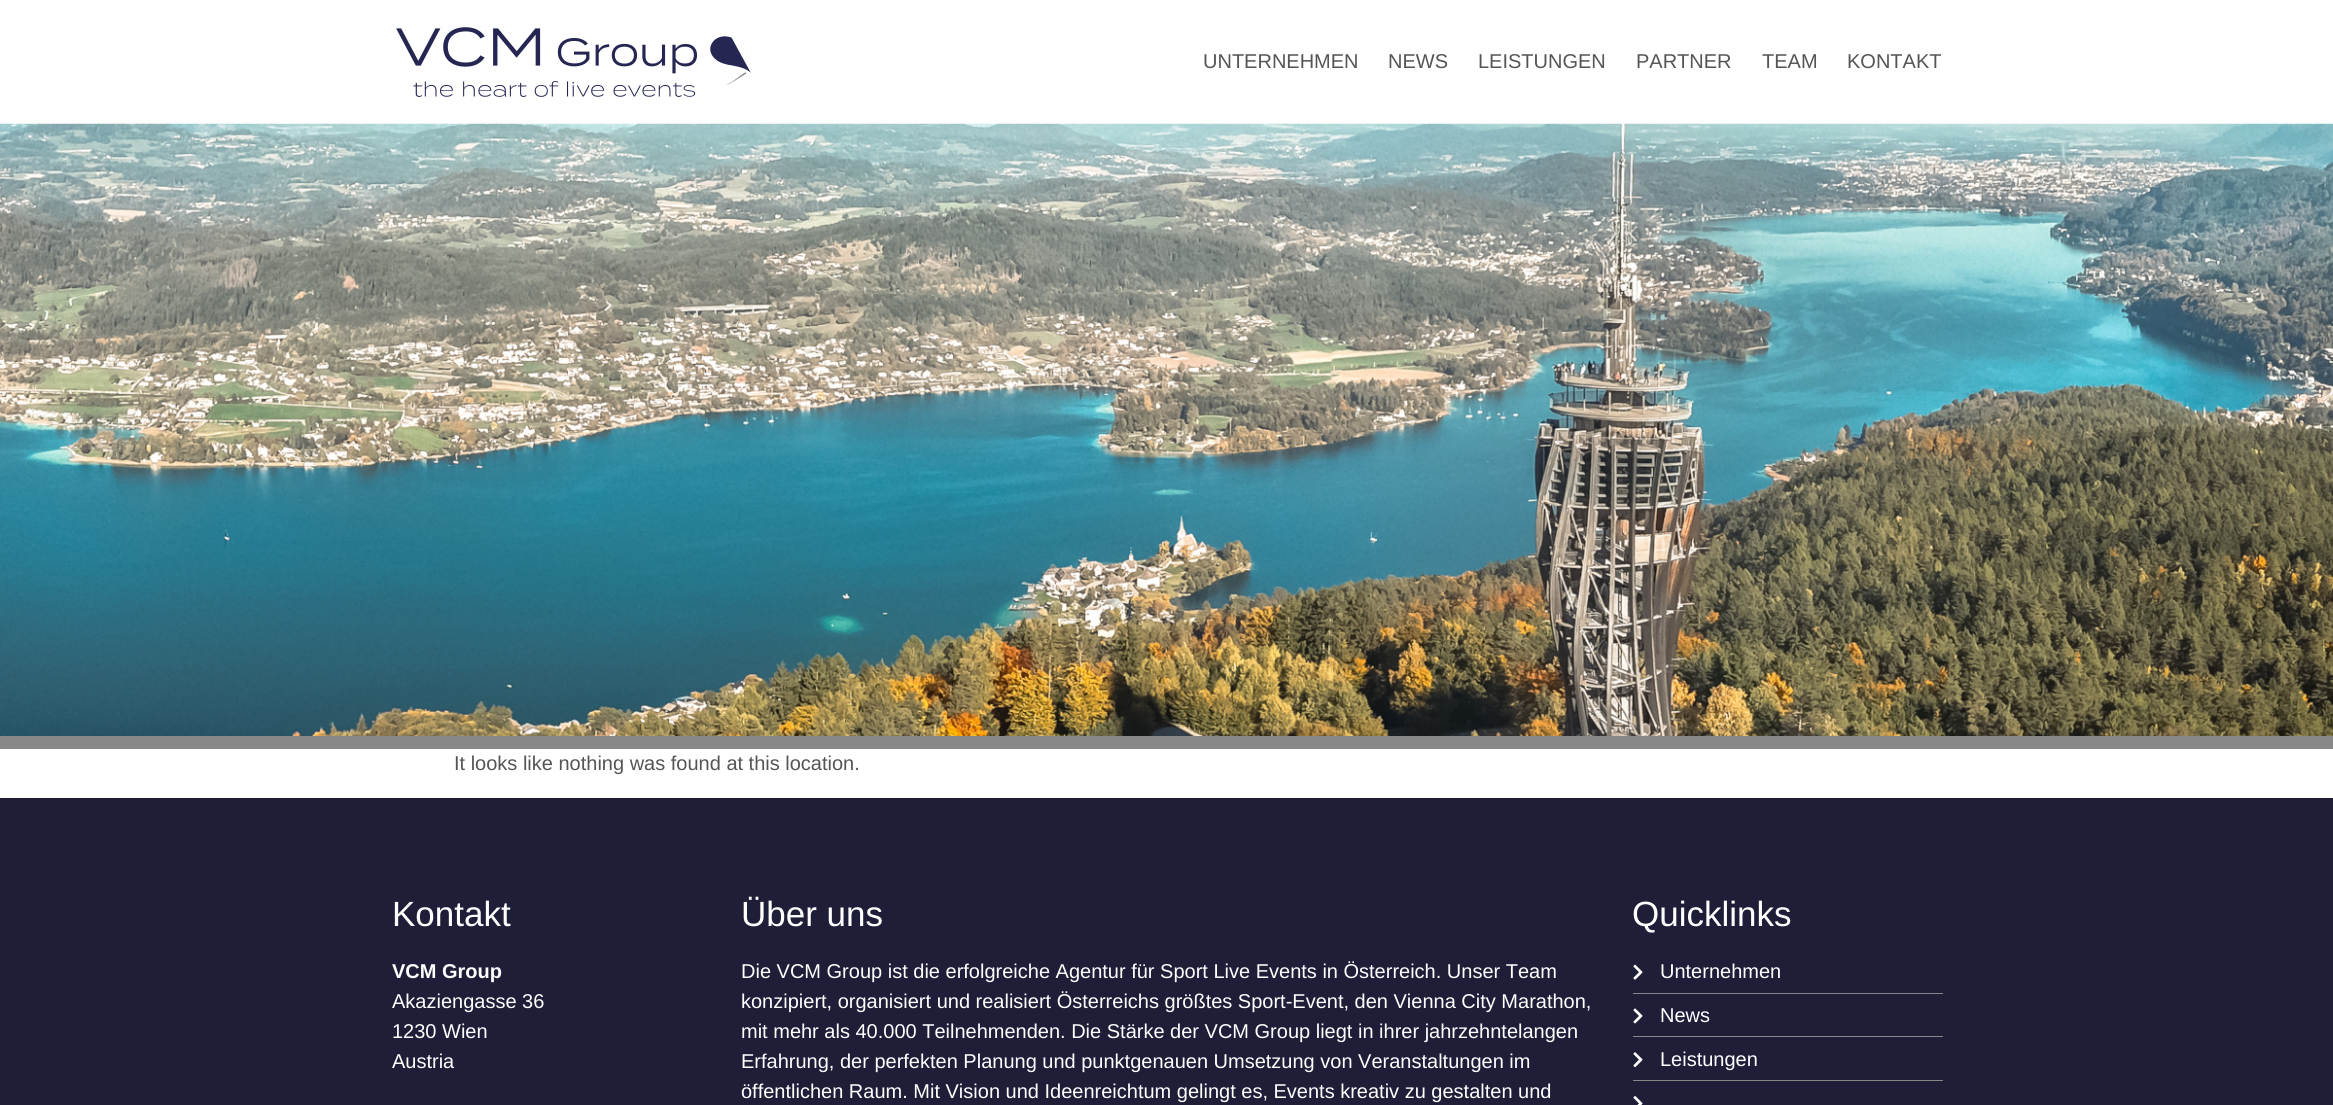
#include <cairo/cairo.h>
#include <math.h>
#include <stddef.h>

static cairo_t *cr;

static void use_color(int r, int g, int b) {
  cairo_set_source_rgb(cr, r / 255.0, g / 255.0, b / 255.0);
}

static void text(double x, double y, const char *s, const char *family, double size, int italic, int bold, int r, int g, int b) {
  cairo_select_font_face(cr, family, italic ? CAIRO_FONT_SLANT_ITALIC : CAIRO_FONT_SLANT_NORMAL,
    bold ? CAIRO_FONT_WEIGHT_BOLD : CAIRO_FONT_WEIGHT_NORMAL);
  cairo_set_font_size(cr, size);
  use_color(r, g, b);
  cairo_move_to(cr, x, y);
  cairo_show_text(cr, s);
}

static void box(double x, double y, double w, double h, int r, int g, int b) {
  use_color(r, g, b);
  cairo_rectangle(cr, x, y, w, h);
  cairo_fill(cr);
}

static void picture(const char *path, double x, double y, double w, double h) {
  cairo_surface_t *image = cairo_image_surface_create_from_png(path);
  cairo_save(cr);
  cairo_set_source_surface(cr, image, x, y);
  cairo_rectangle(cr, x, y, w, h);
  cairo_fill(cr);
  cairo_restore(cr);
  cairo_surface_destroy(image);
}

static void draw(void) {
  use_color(255, 255, 255);
  cairo_paint(cr);
  picture("img_01.png", 396, 27, 355, 70);
  picture("img_02.png", 0, 123, 2333, 613);
  box(0, 736, 2333, 13, 135, 135, 135);
  box(0, 798, 2333, 307, 30, 30, 57);
  picture("img_03.png", 1633, 964, 10, 16);
  box(1633, 993, 310, 1, 135, 135, 135);
  picture("img_04.png", 1633, 1008, 10, 16);
  box(1633, 1036, 310, 1, 135, 135, 135);
  picture("img_05.png", 1633, 1052, 10, 16);
  box(1633, 1080, 310, 1, 135, 135, 135);
  picture("img_06.png", 1633, 1096, 10, 9);
  text(1203, 68, "UNTERNEHMEN", "Liberation Sans", 20, 0, 0, 85, 85, 85);
  text(1388, 68, "NEWS", "Liberation Sans", 20, 0, 0, 85, 85, 85);
  text(1478, 68, "LEISTUNGEN", "Liberation Sans", 20, 0, 0, 85, 85, 85);
  text(1636, 68, "PARTNER", "Liberation Sans", 20, 0, 0, 85, 85, 85);
  text(1762, 68, "TEAM", "Liberation Sans", 20, 0, 0, 85, 85, 85);
  text(1847, 68, "KONTAKT", "Liberation Sans", 20, 0, 0, 85, 85, 85);
  text(454, 770, "It looks like nothing was found at this location.", "Liberation Sans", 20, 0, 0, 85, 85, 85);
  text(392, 926, "Kontakt", "Liberation Sans", 35, 0, 0, 255, 255, 255);
  text(392, 978, "VCM Group", "Liberation Sans", 20, 0, 1, 255, 255, 255);
  text(392, 1008, "Akaziengasse 36", "Liberation Sans", 20, 0, 0, 255, 255, 255);
  text(392, 1038, "1230 Wien", "Liberation Sans", 20, 0, 0, 255, 255, 255);
  text(392, 1068, "Austria", "Liberation Sans", 20, 0, 0, 255, 255, 255);
  text(741, 926, "Über uns", "Liberation Sans", 35, 0, 0, 255, 255, 255);
  text(741, 978, "Die VCM Group ist die erfolgreiche Agentur für Sport Live Events in Österreich. Unser Team", "Liberation Sans", 20, 0, 0, 255, 255, 255);
  text(741, 1008, "konzipiert, organisiert und realisiert Österreichs größtes Sport-Event, den Vienna City Marathon,", "Liberation Sans", 20, 0, 0, 255, 255, 255);
  text(741, 1038, "mit mehr als 40.000 Teilnehmenden. Die Stärke der VCM Group liegt in ihrer jahrzehntelangen", "Liberation Sans", 20, 0, 0, 255, 255, 255);
  text(741, 1068, "Erfahrung, der perfekten Planung und punktgenauen Umsetzung von Veranstaltungen im", "Liberation Sans", 20, 0, 0, 255, 255, 255);
  text(741, 1098, "öffentlichen Raum. Mit Vision und Ideenreichtum gelingt es, Events kreativ zu gestalten und", "Liberation Sans", 20, 0, 0, 255, 255, 255);
  text(1632, 926, "Quicklinks", "Liberation Sans", 35, 0, 0, 255, 255, 255);
  text(1660, 978, "Unternehmen", "Liberation Sans", 20, 0, 0, 255, 255, 255);
  text(1660, 1022, "News", "Liberation Sans", 20, 0, 0, 255, 255, 255);
  text(1660, 1066, "Leistungen", "Liberation Sans", 20, 0, 0, 255, 255, 255);
}

int main(void) {
  cairo_surface_t *surface = cairo_image_surface_create(CAIRO_FORMAT_RGB24, 2333, 1105);
  cr = cairo_create(surface);
  cairo_font_options_t *options = cairo_font_options_create();
  cairo_font_options_set_hint_metrics(options, CAIRO_HINT_METRICS_OFF);
  cairo_font_options_set_hint_style(options, CAIRO_HINT_STYLE_NONE);
  cairo_set_font_options(cr, options);
  cairo_set_miter_limit(cr, 4);
  draw();
  cairo_surface_write_to_png(surface, "out.png");
  cairo_font_options_destroy(options);
  cairo_destroy(cr);
  cairo_surface_destroy(surface);
  return 0;
}
